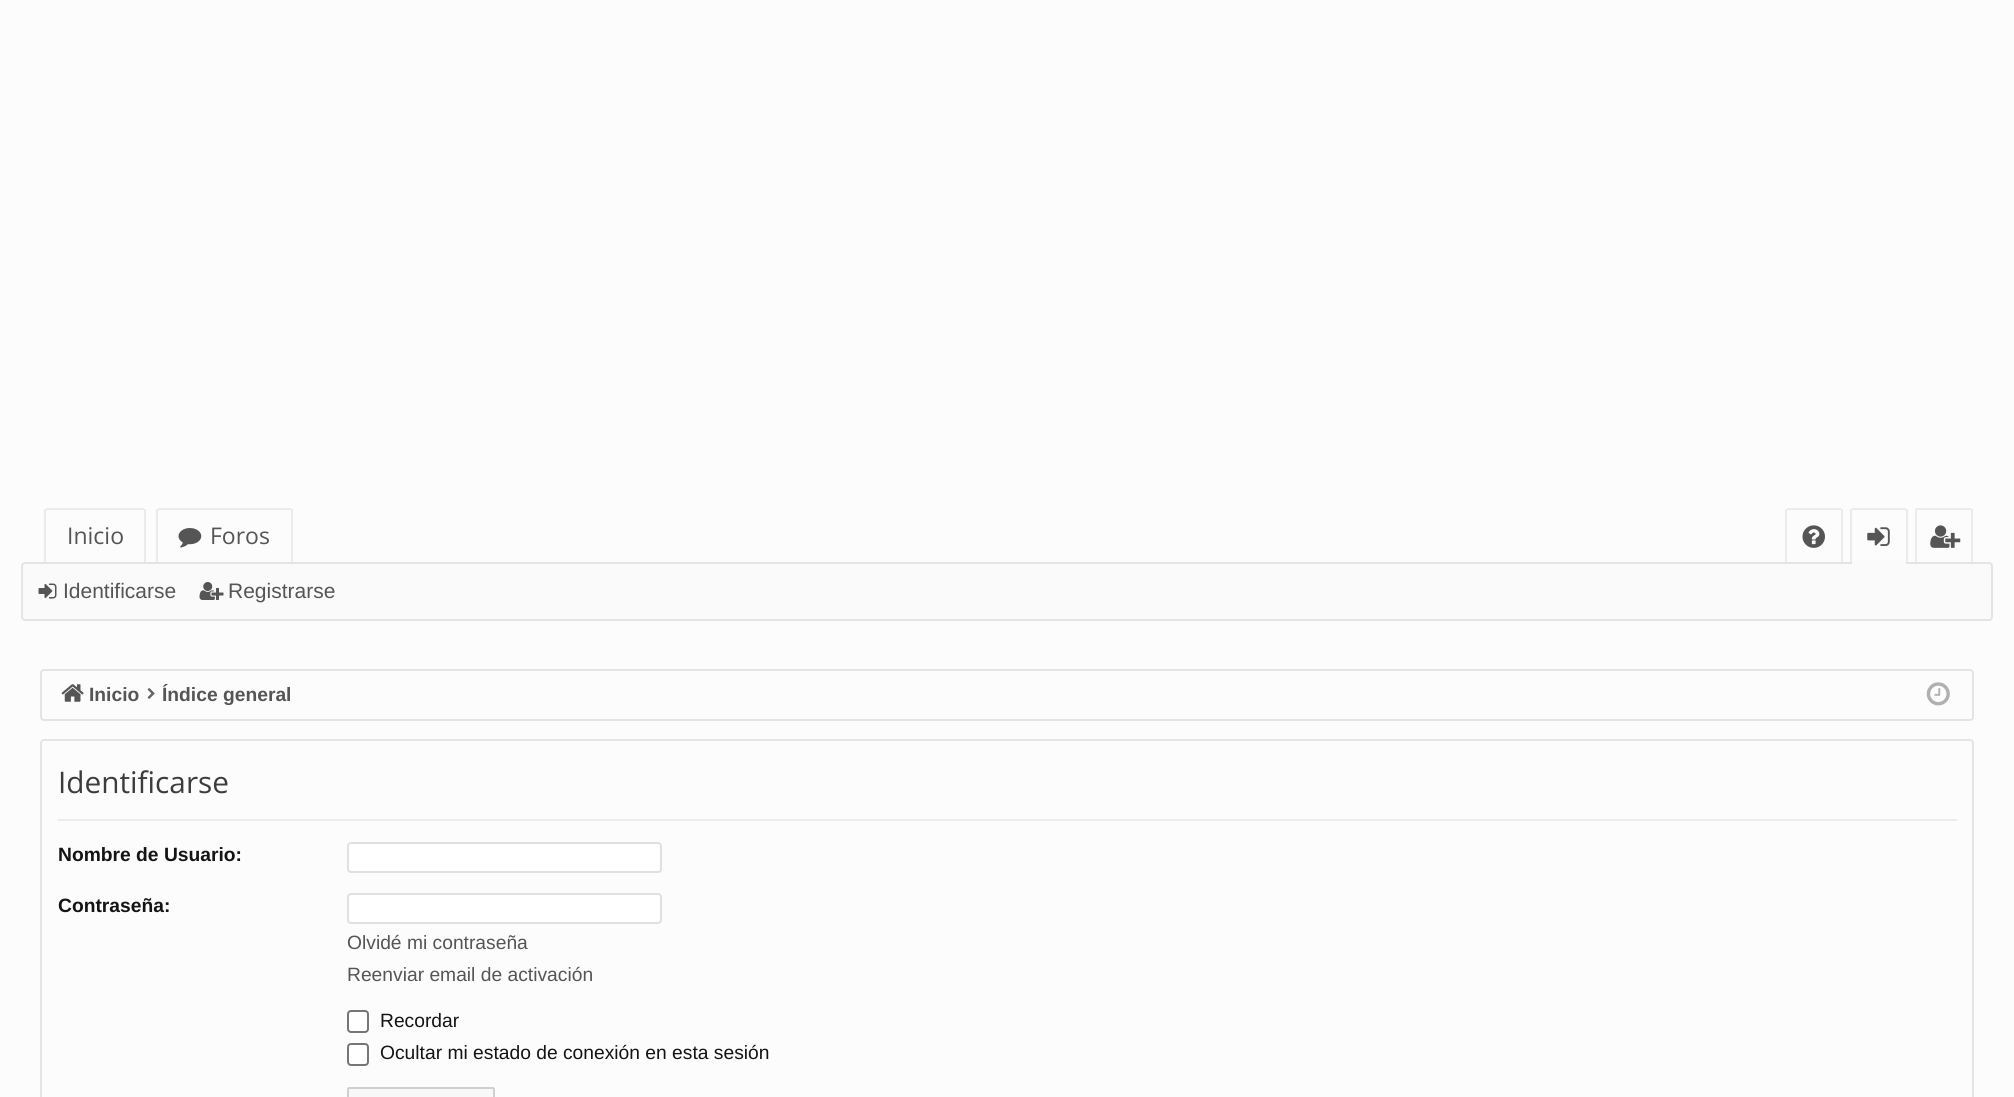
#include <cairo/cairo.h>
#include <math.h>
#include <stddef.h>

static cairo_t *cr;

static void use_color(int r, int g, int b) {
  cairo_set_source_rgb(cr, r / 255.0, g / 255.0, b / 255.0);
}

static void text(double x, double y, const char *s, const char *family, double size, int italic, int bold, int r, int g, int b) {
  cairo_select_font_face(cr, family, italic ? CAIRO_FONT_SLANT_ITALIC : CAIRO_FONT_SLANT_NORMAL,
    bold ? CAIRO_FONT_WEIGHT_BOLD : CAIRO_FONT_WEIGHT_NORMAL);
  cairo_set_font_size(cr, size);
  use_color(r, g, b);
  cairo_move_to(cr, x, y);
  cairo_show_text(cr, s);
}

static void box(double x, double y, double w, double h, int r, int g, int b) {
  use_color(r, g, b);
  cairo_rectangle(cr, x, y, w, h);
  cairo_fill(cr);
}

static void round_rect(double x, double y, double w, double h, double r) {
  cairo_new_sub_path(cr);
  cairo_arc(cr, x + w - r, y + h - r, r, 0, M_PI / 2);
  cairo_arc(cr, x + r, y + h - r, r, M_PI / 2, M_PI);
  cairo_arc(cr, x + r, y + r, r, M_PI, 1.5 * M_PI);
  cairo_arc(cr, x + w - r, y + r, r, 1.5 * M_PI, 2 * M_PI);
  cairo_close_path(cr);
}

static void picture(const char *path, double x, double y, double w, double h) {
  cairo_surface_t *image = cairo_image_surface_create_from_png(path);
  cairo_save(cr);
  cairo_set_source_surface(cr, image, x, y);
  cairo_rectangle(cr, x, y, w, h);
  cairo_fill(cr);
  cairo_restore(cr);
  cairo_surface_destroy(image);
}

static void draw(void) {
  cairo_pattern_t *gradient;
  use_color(252, 252, 252);
  cairo_paint(cr);
  box(46, 508, 98, 2, 235, 235, 235);
  box(144, 509, 2, 55, 235, 235, 235);
  box(44, 509, 2, 55, 235, 235, 235);
  box(158, 508, 133, 2, 235, 235, 235);
  box(291, 509, 2, 55, 235, 235, 235);
  box(156, 509, 2, 55, 235, 235, 235);
  picture("img_01.png", 178, 528, 24, 20);
  box(1787, 508, 54, 2, 235, 235, 235);
  box(1841, 509, 2, 55, 235, 235, 235);
  box(1785, 509, 2, 55, 235, 235, 235);
  picture("img_02.png", 1802, 525, 23, 23);
  box(1852, 508, 54, 2, 235, 235, 235);
  box(1906, 509, 2, 55, 235, 235, 235);
  box(1850, 509, 2, 55, 235, 235, 235);
  picture("img_03.png", 1867, 527, 23, 19);
  box(1971, 509, 2, 55, 235, 235, 235);
  box(1916, 508, 55, 2, 235, 235, 235);
  box(1915, 509, 2, 55, 235, 235, 235);
  use_color(250, 250, 250);
  round_rect(22, 563, 1970, 57, 3);
  cairo_fill_preserve(cr);
  use_color(228, 228, 228);
  cairo_stroke(cr);
  use_color(250, 250, 250);
  cairo_new_path(cr);
  cairo_move_to(cr, 1855.5, 560);
  cairo_line_to(cr, 1902.5, 560);
  cairo_curve_to(cr, 1904.5, 560, 1906, 561.5, 1906, 563.5);
  cairo_line_to(cr, 1906, 567);
  cairo_line_to(cr, 1852, 567);
  cairo_line_to(cr, 1852, 563.5);
  cairo_curve_to(cr, 1852, 561.5, 1853.5, 560, 1855.5, 560);
  cairo_close_path(cr);
  cairo_fill(cr);
  picture("img_04.png", 1930, 525, 31, 23);
  picture("img_05.png", 38, 583, 19, 16);
  picture("img_06.png", 199, 582, 25, 18);
  round_rect(41, 670, 1932, 50, 3);
  use_color(228, 228, 228);
  cairo_stroke(cr);
  picture("img_07.png", 61, 684, 23, 18);
  picture("img_08.png", 147, 688, 8, 11);
  picture("img_09.png", 1926, 682, 24, 24);
  cairo_new_path(cr);
  cairo_move_to(cr, 44, 740);
  cairo_line_to(cr, 1970, 740);
  cairo_curve_to(cr, 1971.5, 740, 1973, 741.5, 1973, 743);
  cairo_line_to(cr, 1973, 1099);
  cairo_curve_to(cr, 1973, 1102.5, 1970.5, 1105, 1967, 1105);
  cairo_line_to(cr, 47, 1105);
  cairo_curve_to(cr, 43.5, 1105, 41, 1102.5, 41, 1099);
  cairo_line_to(cr, 41, 743);
  cairo_curve_to(cr, 41, 741.5, 42.5, 740, 44, 740);
  cairo_close_path(cr);
  cairo_stroke(cr);
  box(58, 819, 1899, 2, 235, 235, 235);
  use_color(255, 255, 255);
  round_rect(348, 843, 313, 29, 3);
  cairo_fill_preserve(cr);
  use_color(224, 224, 224);
  cairo_stroke(cr);
  use_color(255, 255, 255);
  round_rect(348, 894, 313, 29, 3);
  cairo_fill_preserve(cr);
  use_color(224, 224, 224);
  cairo_stroke(cr);
  use_color(255, 255, 255);
  round_rect(348, 1011, 20, 21, 3);
  cairo_fill_preserve(cr);
  use_color(118, 118, 118);
  cairo_stroke(cr);
  use_color(255, 255, 255);
  round_rect(348, 1044, 20, 21, 3);
  cairo_fill_preserve(cr);
  use_color(118, 118, 118);
  cairo_stroke(cr);
  gradient = cairo_pattern_create_linear(421, 1089, 421, 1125);
  cairo_pattern_add_color_stop_rgba(gradient, 0, 0.973, 0.973, 0.973, 1);
  cairo_pattern_add_color_stop_rgba(gradient, 1, 0.965, 0.965, 0.965, 1);
  cairo_set_source(cr, gradient);
  cairo_pattern_destroy(gradient);
  cairo_rectangle(cr, 347, 1089, 148, 8);
  cairo_fill(cr);
  round_rect(348, 1088, 146, 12, 1);
  use_color(208, 208, 208);
  cairo_stroke(cr);
  text(67, 544, "Inicio", "Open Sans", 23, 0, 0, 85, 85, 85);
  text(210, 544, "Foros", "Open Sans", 23, 0, 0, 85, 85, 85);
  text(63, 598, "Identificarse", "Liberation Sans", 21, 0, 0, 85, 85, 85);
  text(228, 598, "Registrarse", "Liberation Sans", 21, 0, 0, 85, 85, 85);
  text(89, 701, "Inicio", "Liberation Sans", 19.25, 0, 1, 85, 85, 85);
  text(162, 701, "Índice general", "Liberation Sans", 19.25, 0, 1, 85, 85, 85);
  text(58, 793, "Identificarse", "Open Sans", 29.75, 0, 0, 60, 60, 60);
  text(58, 861, "Nombre de Usuario:", "Liberation Sans", 19.25, 0, 1, 20, 20, 20);
  text(58, 912, "Contraseña:", "Liberation Sans", 19.25, 0, 1, 20, 20, 20);
  text(347, 949, "Olvidé mi contraseña", "Liberation Sans", 19.25, 0, 0, 85, 85, 85);
  text(347, 981, "Reenviar email de activación", "Liberation Sans", 19.25, 0, 0, 85, 85, 85);
  text(380, 1027, "Recordar", "Liberation Sans", 19.25, 0, 0, 20, 20, 20);
  text(380, 1059, "Ocultar mi estado de conexión en esta sesión", "Liberation Sans", 19.25, 0, 0, 20, 20, 20);
}

int main(void) {
  cairo_surface_t *surface = cairo_image_surface_create(CAIRO_FORMAT_RGB24, 2014, 1097);
  cr = cairo_create(surface);
  cairo_font_options_t *options = cairo_font_options_create();
  cairo_font_options_set_hint_metrics(options, CAIRO_HINT_METRICS_OFF);
  cairo_font_options_set_hint_style(options, CAIRO_HINT_STYLE_NONE);
  cairo_set_font_options(cr, options);
  cairo_set_miter_limit(cr, 4);
  draw();
  cairo_surface_write_to_png(surface, "out.png");
  cairo_font_options_destroy(options);
  cairo_destroy(cr);
  cairo_surface_destroy(surface);
  return 0;
}
